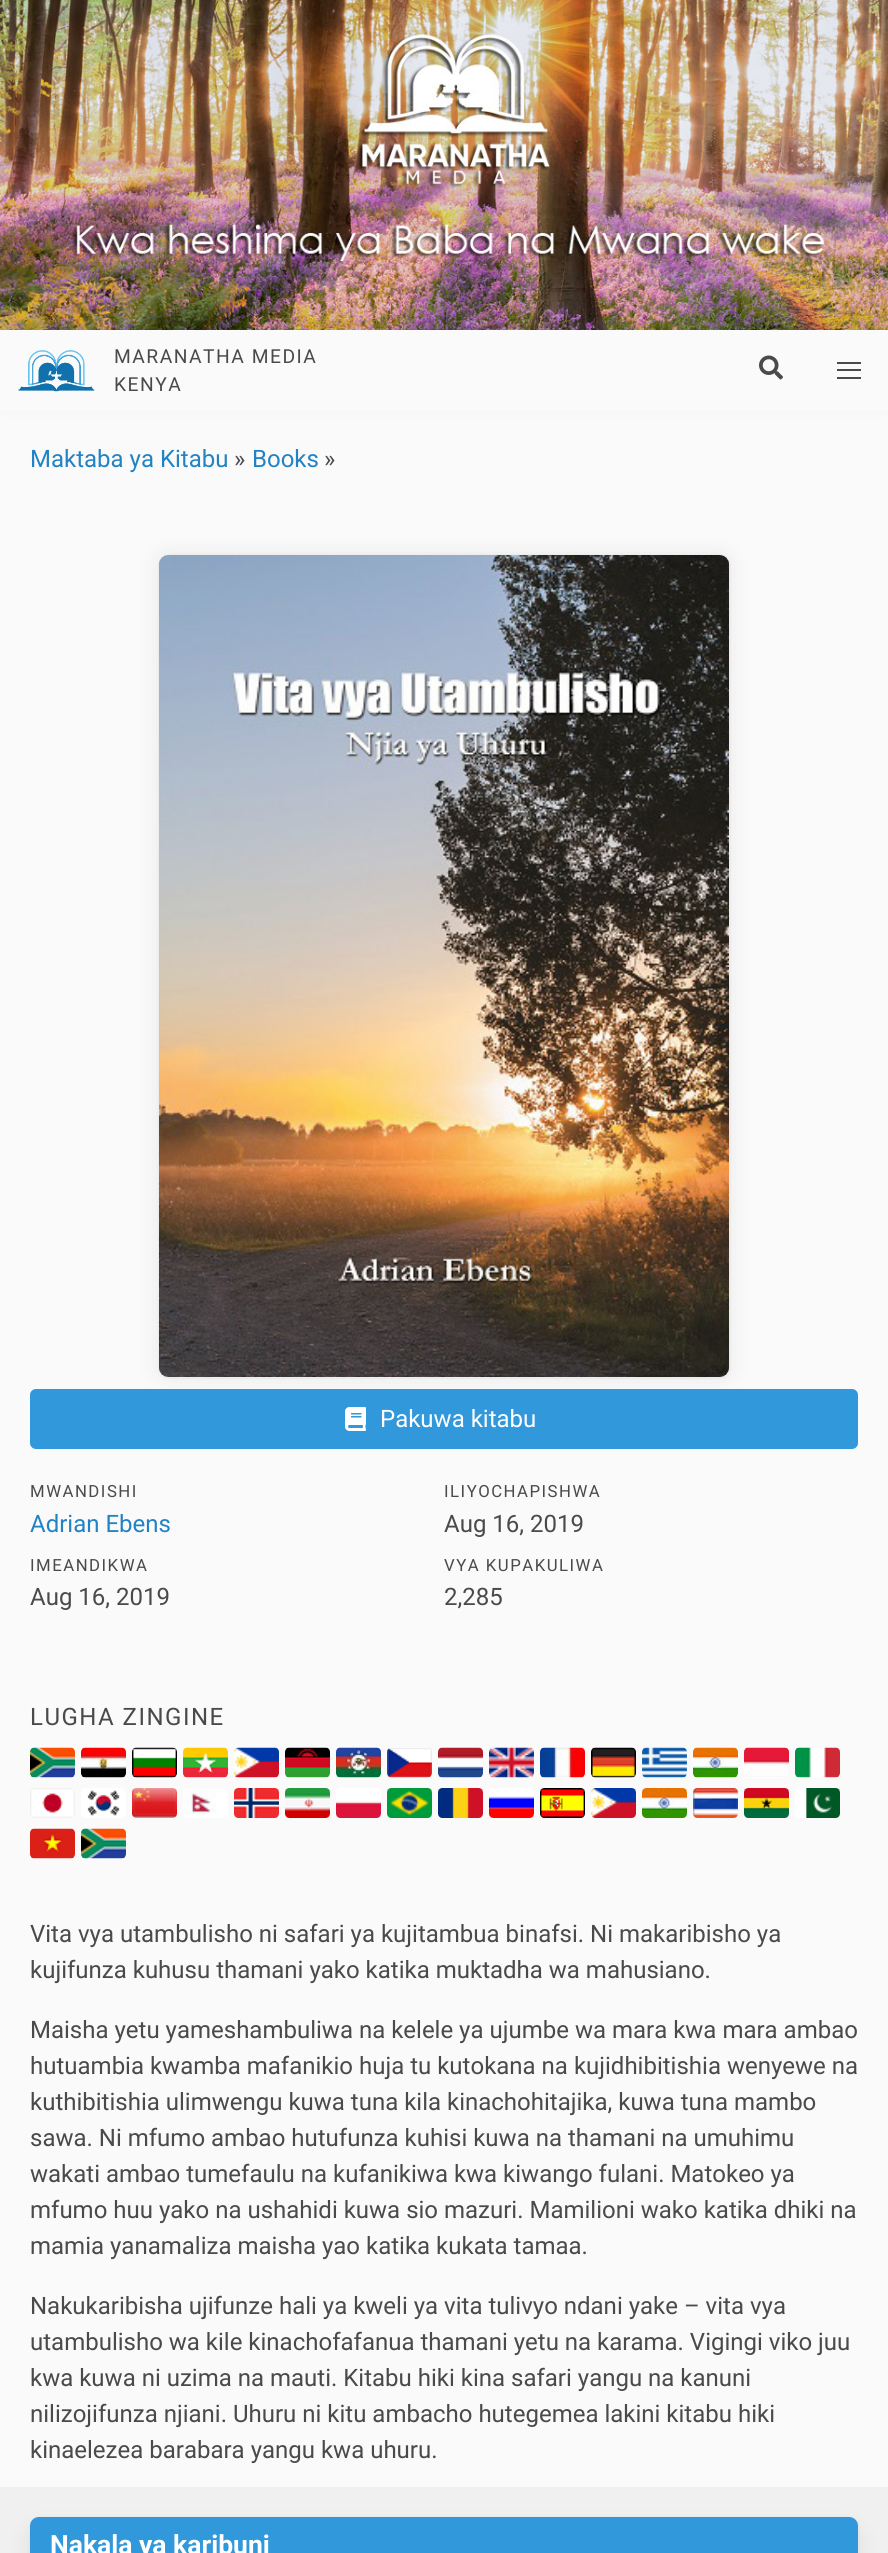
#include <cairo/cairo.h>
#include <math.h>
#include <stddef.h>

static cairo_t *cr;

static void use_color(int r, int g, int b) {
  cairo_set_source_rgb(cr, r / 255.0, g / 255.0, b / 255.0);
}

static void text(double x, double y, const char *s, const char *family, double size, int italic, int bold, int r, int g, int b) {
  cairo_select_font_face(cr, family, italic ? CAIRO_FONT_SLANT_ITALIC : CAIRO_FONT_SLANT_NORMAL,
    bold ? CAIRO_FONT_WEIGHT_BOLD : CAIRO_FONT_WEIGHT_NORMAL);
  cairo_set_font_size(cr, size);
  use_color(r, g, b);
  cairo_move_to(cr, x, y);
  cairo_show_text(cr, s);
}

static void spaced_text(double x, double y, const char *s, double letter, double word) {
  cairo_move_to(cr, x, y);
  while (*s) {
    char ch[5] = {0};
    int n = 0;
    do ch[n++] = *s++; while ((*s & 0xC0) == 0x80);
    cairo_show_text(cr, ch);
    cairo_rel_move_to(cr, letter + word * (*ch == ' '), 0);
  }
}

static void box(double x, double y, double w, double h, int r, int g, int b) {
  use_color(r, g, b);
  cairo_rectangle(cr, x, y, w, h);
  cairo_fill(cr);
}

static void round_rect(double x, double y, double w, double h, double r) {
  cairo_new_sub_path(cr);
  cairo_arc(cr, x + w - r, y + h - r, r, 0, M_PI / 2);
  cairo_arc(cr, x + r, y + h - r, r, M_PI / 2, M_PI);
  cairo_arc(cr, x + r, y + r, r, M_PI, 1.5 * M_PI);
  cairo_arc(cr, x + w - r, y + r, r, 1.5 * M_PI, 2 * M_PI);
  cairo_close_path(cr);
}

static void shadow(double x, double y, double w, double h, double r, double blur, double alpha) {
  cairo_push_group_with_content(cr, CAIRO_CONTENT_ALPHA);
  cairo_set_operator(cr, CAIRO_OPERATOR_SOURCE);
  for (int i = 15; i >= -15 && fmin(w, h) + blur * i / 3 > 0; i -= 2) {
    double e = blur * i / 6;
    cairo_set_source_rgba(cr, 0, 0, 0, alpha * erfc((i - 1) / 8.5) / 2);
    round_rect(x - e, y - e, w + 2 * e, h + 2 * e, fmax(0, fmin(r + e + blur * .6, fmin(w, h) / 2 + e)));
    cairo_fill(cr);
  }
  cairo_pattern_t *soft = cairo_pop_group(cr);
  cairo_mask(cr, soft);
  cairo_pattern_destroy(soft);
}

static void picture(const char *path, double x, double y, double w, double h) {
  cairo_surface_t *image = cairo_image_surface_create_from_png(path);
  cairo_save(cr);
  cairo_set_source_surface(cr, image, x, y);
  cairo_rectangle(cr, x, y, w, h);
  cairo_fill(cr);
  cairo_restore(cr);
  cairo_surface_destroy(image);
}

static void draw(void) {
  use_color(250, 250, 250);
  cairo_paint(cr);
  picture("img_01.png", 0, 0, 888, 330);
  use_color(10, 10, 10);
  shadow(3, 321, 882, 75, 0, 12, 0.1);
  box(0, 330, 888, 81, 250, 250, 250);
  picture("img_02.png", 18, 350, 77, 42);
  picture("img_03.png", 759, 355, 24, 25);
  box(837, 362, 24, 2, 74, 74, 74);
  box(837, 369, 24, 2, 74, 74, 74);
  box(837, 377, 24, 2, 74, 74, 74);
  round_rect(159, 555, 571, 823, 10);
  use_color(245, 245, 245);
  cairo_stroke(cr);
  use_color(10, 10, 10);
  shadow(162, 558, 564, 816, 6, 12, 0.1);
  picture("img_04.png", 159, 555, 570, 822);
  use_color(50, 152, 220);
  round_rect(30, 1389, 828, 60, 6);
  cairo_fill(cr);
  picture("img_05.png", 345, 1407, 21, 24);
  use_color(255, 255, 255);
  round_rect(30, 1748, 45, 30, 5);
  cairo_fill(cr);
  picture("img_06.png", 30, 1747, 45, 31);
  round_rect(81, 1748, 45, 30, 5);
  cairo_fill(cr);
  picture("img_07.png", 81, 1747, 45, 31);
  round_rect(132, 1748, 45, 30, 5);
  cairo_fill(cr);
  picture("img_08.png", 132, 1747, 45, 31);
  round_rect(183, 1748, 45, 30, 5);
  cairo_fill(cr);
  picture("img_09.png", 183, 1747, 45, 31);
  round_rect(234, 1748, 45, 30, 5);
  cairo_fill(cr);
  picture("img_10.png", 234, 1747, 45, 31);
  round_rect(285, 1748, 45, 30, 5);
  cairo_fill(cr);
  picture("img_11.png", 285, 1747, 45, 31);
  round_rect(336, 1748, 45, 30, 5);
  cairo_fill(cr);
  picture("img_12.png", 336, 1747, 45, 31);
  round_rect(438, 1748, 45, 30, 5);
  cairo_fill(cr);
  picture("img_13.png", 438, 1747, 45, 31);
  round_rect(489, 1748, 45, 30, 5);
  cairo_fill(cr);
  picture("img_14.png", 489, 1747, 45, 31);
  round_rect(540, 1748, 45, 30, 5);
  cairo_fill(cr);
  picture("img_15.png", 540, 1747, 45, 31);
  round_rect(591, 1748, 45, 30, 5);
  cairo_fill(cr);
  picture("img_16.png", 591, 1747, 45, 31);
  round_rect(642, 1748, 45, 30, 5);
  cairo_fill(cr);
  picture("img_17.png", 642, 1747, 45, 31);
  round_rect(693, 1748, 45, 30, 5);
  cairo_fill(cr);
  picture("img_18.png", 693, 1747, 45, 31);
  round_rect(744, 1748, 45, 30, 5);
  cairo_fill(cr);
  picture("img_19.png", 744, 1747, 45, 30);
  round_rect(795, 1748, 45, 30, 5);
  cairo_fill(cr);
  picture("img_20.png", 795, 1747, 45, 31);
  round_rect(387, 1748, 45, 30, 5);
  cairo_fill(cr);
  picture("img_21.png", 387, 1748, 45, 30);
  picture("img_22.png", 30, 1788, 45, 30);
  round_rect(81, 1788, 45, 30, 5);
  cairo_fill(cr);
  picture("img_23.png", 132, 1788, 45, 30);
  round_rect(183, 1788, 45, 30, 5);
  cairo_fill(cr);
  picture("img_24.png", 183, 1788, 34, 27);
  picture("img_25.png", 234, 1788, 45, 30);
  picture("img_26.png", 285, 1788, 45, 30);
  round_rect(336, 1788, 45, 30, 5);
  cairo_fill(cr);
  picture("img_27.png", 387, 1788, 45, 30);
  picture("img_28.png", 438, 1788, 45, 30);
  round_rect(489, 1788, 45, 30, 5);
  cairo_fill(cr);
  picture("img_29.png", 540, 1788, 45, 30);
  picture("img_30.png", 591, 1788, 45, 30);
  picture("img_31.png", 642, 1788, 45, 30);
  round_rect(693, 1788, 45, 30, 5);
  cairo_fill(cr);
  picture("img_32.png", 693, 1788, 45, 30);
  picture("img_33.png", 744, 1788, 45, 30);
  round_rect(795, 1788, 45, 30, 5);
  cairo_fill(cr);
  picture("img_34.png", 87, 1790, 33, 26);
  picture("img_35.png", 336, 1801, 45, 17);
  picture("img_36.png", 489, 1796, 45, 22);
  picture("img_37.png", 805, 1788, 35, 30);
  round_rect(30, 1829, 45, 30, 5);
  cairo_fill(cr);
  picture("img_38.png", 30, 1828, 45, 31);
  round_rect(81, 1829, 45, 30, 5);
  cairo_fill(cr);
  picture("img_06.png", 81, 1828, 45, 31);
  box(0, 2487, 888, 66, 240, 240, 240);
  round_rect(30, 2517, 829, 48, 10);
  use_color(235, 235, 235);
  cairo_stroke(cr);
  use_color(10, 10, 10);
  shadow(33, 2532, 822, 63, 6, 12, 0.1);
  use_color(50, 152, 220);
  cairo_new_path(cr);
  cairo_move_to(cr, 39, 2517);
  cairo_line_to(cr, 849, 2517);
  cairo_curve_to(cr, 854, 2517, 858, 2521, 858, 2526);
  cairo_line_to(cr, 858, 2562);
  cairo_line_to(cr, 30, 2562);
  cairo_line_to(cr, 30, 2526);
  cairo_curve_to(cr, 30, 2521, 34, 2517, 39, 2517);
  cairo_close_path(cr);
  cairo_fill(cr);
  cairo_select_font_face(cr, "Roboto", CAIRO_FONT_SLANT_NORMAL, CAIRO_FONT_WEIGHT_NORMAL);
  cairo_set_font_size(cr, 19.25);
  use_color(74, 74, 74);
  spaced_text(114, 363, "MARANATHA MEDIA", 1.5, 0);
  spaced_text(114, 391, "KENYA", 1.5, 0);
  text(30, 467, "Maktaba ya Kitabu", "Roboto", 24, 0, 0, 33, 131, 196);
  text(234, 467, "»", "Roboto", 24, 0, 0, 74, 74, 74);
  text(252, 467, "Books", "Roboto", 24, 0, 0, 33, 131, 196);
  text(324, 467, "»", "Roboto", 24, 0, 0, 74, 74, 74);
  text(380, 1427, "Pakuwa kitabu", "Roboto", 24, 0, 0, 255, 255, 255);
  cairo_set_font_size(cr, 16.75);
  use_color(74, 74, 74);
  spaced_text(30, 1497, "MWANDISHI", 1.5, 0);
  text(30, 1532, "Adrian Ebens", "Roboto", 24, 0, 0, 33, 131, 196);
  cairo_set_font_size(cr, 16.75);
  use_color(74, 74, 74);
  spaced_text(444, 1497, "ILIYOCHAPISHWA", 1.5, 0);
  text(444, 1532, "Aug 16, 2019", "Roboto", 24, 0, 0, 74, 74, 74);
  cairo_set_font_size(cr, 16.75);
  spaced_text(30, 1571, "IMEANDIKWA", 1.5, 0);
  text(30, 1605, "Aug 16, 2019", "Roboto", 24, 0, 0, 74, 74, 74);
  cairo_set_font_size(cr, 16.75);
  spaced_text(444, 1571, "VYA KUPAKULIWA", 1.5, 0);
  text(444, 1605, "2,285", "Roboto", 24, 0, 0, 74, 74, 74);
  spaced_text(30, 1725, "LUGHA ZINGINE", 1.5, 0);
  text(30, 1942, "Vita vya utambulisho ni safari ya kujitambua binafsi. Ni makaribisho ya", "Roboto", 24, 0, 0, 74, 74, 74);
  text(30, 1978, "kujifunza kuhusu thamani yako katika muktadha wa mahusiano.", "Roboto", 24, 0, 0, 74, 74, 74);
  text(30, 2038, "Maisha yetu yameshambuliwa na kelele ya ujumbe wa mara kwa mara ambao", "Roboto", 24, 0, 0, 74, 74, 74);
  text(30, 2074, "hutuambia kwamba mafanikio huja tu kutokana na kujidhibitishia wenyewe na", "Roboto", 24, 0, 0, 74, 74, 74);
  text(30, 2110, "kuthibitishia ulimwengu kuwa tuna kila kinachohitajika, kuwa tuna mambo", "Roboto", 24, 0, 0, 74, 74, 74);
  text(30, 2146, "sawa. Ni mfumo ambao hutufunza kuhisi kuwa na thamani na umuhimu", "Roboto", 24, 0, 0, 74, 74, 74);
  text(30, 2182, "wakati ambao tumefaulu na kufanikiwa kwa kiwango fulani. Matokeo ya", "Roboto", 24, 0, 0, 74, 74, 74);
  text(30, 2218, "mfumo huu yako na ushahidi kuwa sio mazuri. Mamilioni wako katika dhiki na", "Roboto", 24, 0, 0, 74, 74, 74);
  text(30, 2254, "mamia yanamaliza maisha yao katika kukata tamaa.", "Roboto", 24, 0, 0, 74, 74, 74);
  text(30, 2314, "Nakukaribisha ujifunze hali ya kweli ya vita tulivyo ndani yake – vita vya", "Roboto", 24, 0, 0, 74, 74, 74);
  text(30, 2350, "utambulisho wa kile kinachofafanua thamani yetu na karama. Vigingi viko juu", "Roboto", 24, 0, 0, 74, 74, 74);
  text(30, 2386, "kwa kuwa ni uzima na mauti. Kitabu hiki kina safari yangu na kanuni", "Roboto", 24, 0, 0, 74, 74, 74);
  text(30, 2422, "nilizojifunza njiani. Uhuru ni kitu ambacho hutegemea lakini kitabu hiki", "Roboto", 24, 0, 0, 74, 74, 74);
  text(30, 2458, "kinaelezea barabara yangu kwa uhuru.", "Roboto", 24, 0, 0, 74, 74, 74);
  text(50, 2554, "Nakala ya karibuni", "Roboto", 26.5, 0, 1, 255, 255, 255);
}

int main(void) {
  cairo_surface_t *surface = cairo_image_surface_create(CAIRO_FORMAT_RGB24, 888, 2553);
  cr = cairo_create(surface);
  cairo_font_options_t *options = cairo_font_options_create();
  cairo_font_options_set_hint_metrics(options, CAIRO_HINT_METRICS_OFF);
  cairo_font_options_set_hint_style(options, CAIRO_HINT_STYLE_NONE);
  cairo_set_font_options(cr, options);
  cairo_set_miter_limit(cr, 4);
  draw();
  cairo_surface_write_to_png(surface, "out.png");
  cairo_font_options_destroy(options);
  cairo_destroy(cr);
  cairo_surface_destroy(surface);
  return 0;
}
